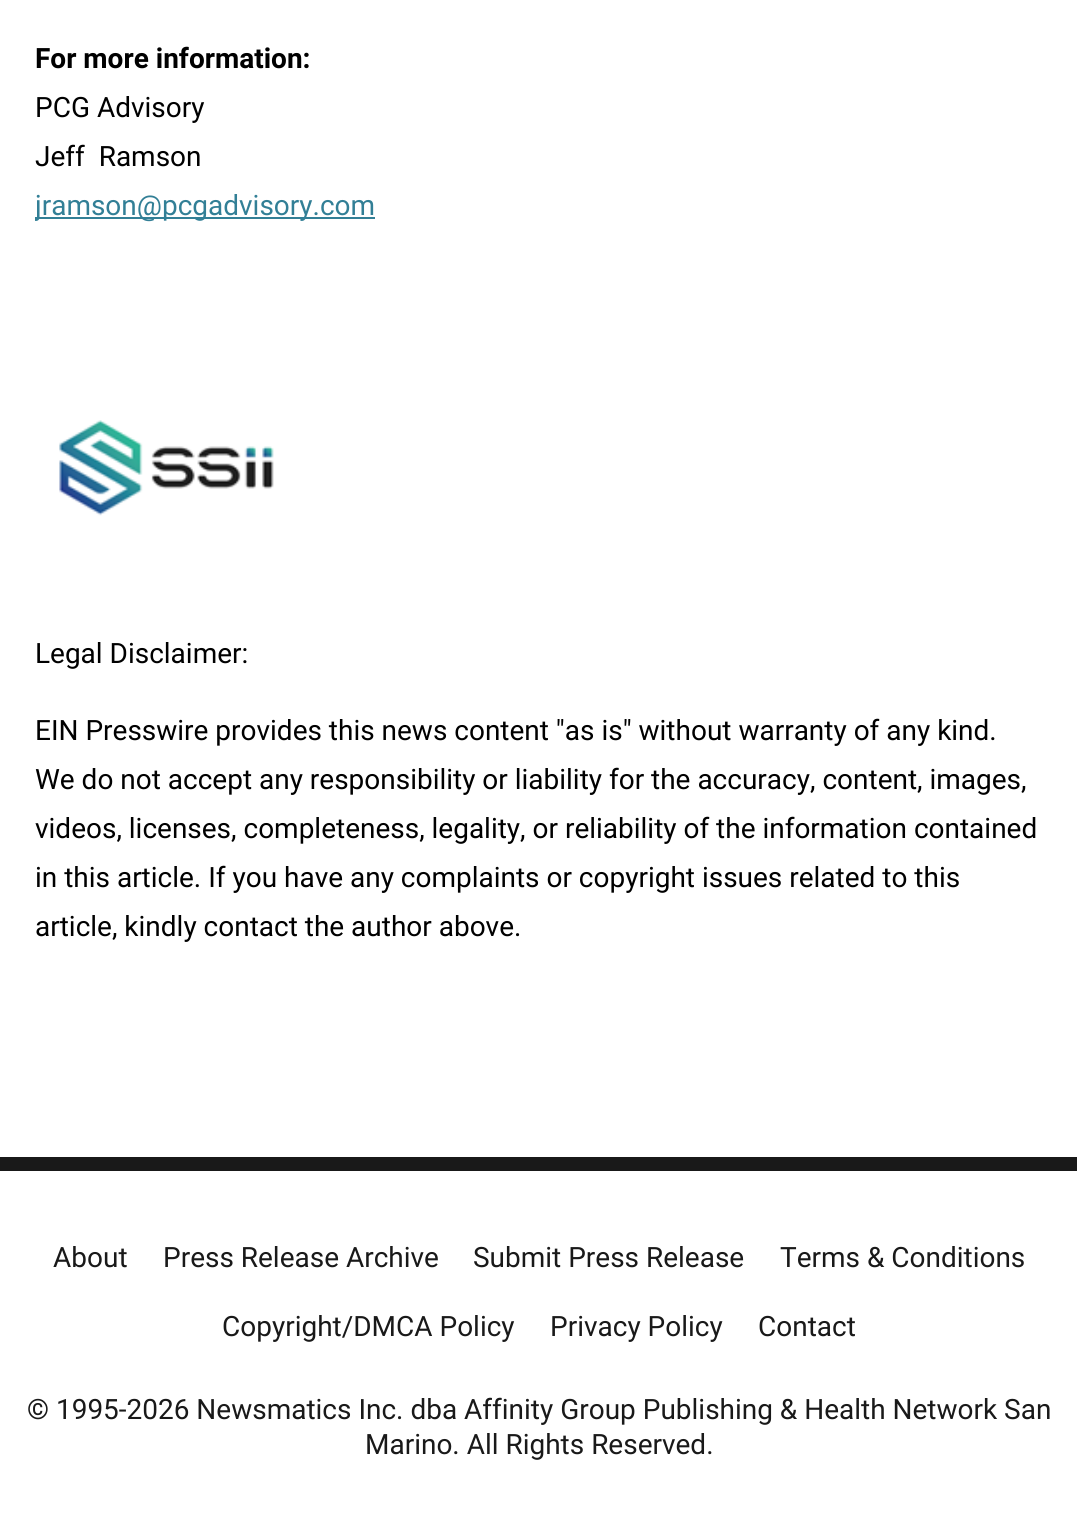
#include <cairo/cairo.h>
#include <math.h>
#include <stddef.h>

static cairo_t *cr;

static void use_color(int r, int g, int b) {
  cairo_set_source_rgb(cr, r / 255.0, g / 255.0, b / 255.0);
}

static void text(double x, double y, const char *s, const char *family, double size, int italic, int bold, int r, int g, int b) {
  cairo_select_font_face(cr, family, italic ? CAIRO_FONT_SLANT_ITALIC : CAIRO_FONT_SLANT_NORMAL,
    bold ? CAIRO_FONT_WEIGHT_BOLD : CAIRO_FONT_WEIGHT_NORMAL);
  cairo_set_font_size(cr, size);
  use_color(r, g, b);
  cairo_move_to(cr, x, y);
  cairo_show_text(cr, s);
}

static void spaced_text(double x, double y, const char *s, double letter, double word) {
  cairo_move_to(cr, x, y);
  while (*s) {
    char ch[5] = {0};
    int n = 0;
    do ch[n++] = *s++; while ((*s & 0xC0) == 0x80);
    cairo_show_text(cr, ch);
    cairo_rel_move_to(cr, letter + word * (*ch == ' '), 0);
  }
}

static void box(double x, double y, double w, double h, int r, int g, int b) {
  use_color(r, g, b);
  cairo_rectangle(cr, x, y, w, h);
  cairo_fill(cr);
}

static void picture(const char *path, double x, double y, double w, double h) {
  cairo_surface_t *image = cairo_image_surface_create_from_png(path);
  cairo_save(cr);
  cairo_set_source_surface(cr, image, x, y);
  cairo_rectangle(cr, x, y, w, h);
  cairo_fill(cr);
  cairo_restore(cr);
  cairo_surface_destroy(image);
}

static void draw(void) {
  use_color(255, 255, 255);
  cairo_paint(cr);
  box(35, 217, 340, 2, 50, 127, 150);
  picture("img_01.png", 59, 420, 215, 96);
  box(0, 1157, 1077, 14, 25, 25, 25);
  text(35, 68, "For more information:", "Roboto", 28, 0, 1, 0, 0, 0);
  text(35, 117, "PCG Advisory", "Roboto", 28, 0, 0, 0, 0, 0);
  spaced_text(35, 166, "Jeff Ramson", 0, 7);
  cairo_save(cr);
  cairo_rectangle(cr, 35, 0, 1008, 982);
  cairo_clip(cr);
  text(35, 215, "jramson@pcgadvisory.com", "Roboto", 28, 0, 0, 50, 127, 150);
  cairo_restore(cr);
  text(35, 663, "Legal Disclaimer:", "Roboto", 28, 0, 0, 0, 0, 0);
  text(35, 740, "EIN Presswire provides this news content \"as is\" without warranty of any kind.", "Roboto", 28, 0, 0, 0, 0, 0);
  text(35, 789, "We do not accept any responsibility or liability for the accuracy, content, images,", "Roboto", 28, 0, 0, 0, 0, 0);
  text(35, 838, "videos, licenses, completeness, legality, or reliability of the information contained", "Roboto", 28, 0, 0, 0, 0, 0);
  text(35, 887, "in this article. If you have any complaints or copyright issues related to this", "Roboto", 28, 0, 0, 0, 0, 0);
  text(35, 936, "article, kindly contact the author above.", "Roboto", 28, 0, 0, 0, 0, 0);
  text(53, 1267, "About", "Roboto", 28, 0, 0, 25, 25, 25);
  text(163, 1267, "Press Release Archive", "Roboto", 28, 0, 0, 25, 25, 25);
  text(473, 1267, "Submit Press Release", "Roboto", 28, 0, 0, 25, 25, 25);
  text(780, 1267, "Terms & Conditions", "Roboto", 28, 0, 0, 25, 25, 25);
  text(222, 1336, "Copyright/DMCA Policy", "Roboto", 28, 0, 0, 25, 25, 25);
  text(550, 1336, "Privacy Policy", "Roboto", 28, 0, 0, 25, 25, 25);
  text(758, 1336, "Contact", "Roboto", 28, 0, 0, 25, 25, 25);
  text(27, 1419, "© 1995-2026 Newsmatics Inc. dba Affinity Group Publishing & Health Network San", "Roboto", 28, 0, 0, 25, 25, 25);
  text(365, 1454, "Marino. All Rights Reserved.", "Roboto", 28, 0, 0, 25, 25, 25);
}

int main(void) {
  cairo_surface_t *surface = cairo_image_surface_create(CAIRO_FORMAT_RGB24, 1077, 1533);
  cr = cairo_create(surface);
  cairo_font_options_t *options = cairo_font_options_create();
  cairo_font_options_set_hint_metrics(options, CAIRO_HINT_METRICS_OFF);
  cairo_font_options_set_hint_style(options, CAIRO_HINT_STYLE_NONE);
  cairo_set_font_options(cr, options);
  cairo_set_miter_limit(cr, 4);
  draw();
  cairo_surface_write_to_png(surface, "out.png");
  cairo_font_options_destroy(options);
  cairo_destroy(cr);
  cairo_surface_destroy(surface);
  return 0;
}
